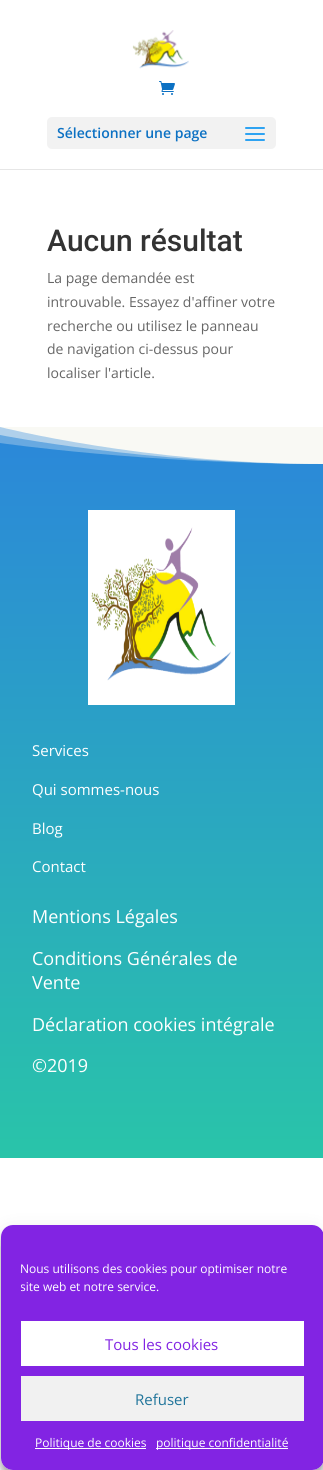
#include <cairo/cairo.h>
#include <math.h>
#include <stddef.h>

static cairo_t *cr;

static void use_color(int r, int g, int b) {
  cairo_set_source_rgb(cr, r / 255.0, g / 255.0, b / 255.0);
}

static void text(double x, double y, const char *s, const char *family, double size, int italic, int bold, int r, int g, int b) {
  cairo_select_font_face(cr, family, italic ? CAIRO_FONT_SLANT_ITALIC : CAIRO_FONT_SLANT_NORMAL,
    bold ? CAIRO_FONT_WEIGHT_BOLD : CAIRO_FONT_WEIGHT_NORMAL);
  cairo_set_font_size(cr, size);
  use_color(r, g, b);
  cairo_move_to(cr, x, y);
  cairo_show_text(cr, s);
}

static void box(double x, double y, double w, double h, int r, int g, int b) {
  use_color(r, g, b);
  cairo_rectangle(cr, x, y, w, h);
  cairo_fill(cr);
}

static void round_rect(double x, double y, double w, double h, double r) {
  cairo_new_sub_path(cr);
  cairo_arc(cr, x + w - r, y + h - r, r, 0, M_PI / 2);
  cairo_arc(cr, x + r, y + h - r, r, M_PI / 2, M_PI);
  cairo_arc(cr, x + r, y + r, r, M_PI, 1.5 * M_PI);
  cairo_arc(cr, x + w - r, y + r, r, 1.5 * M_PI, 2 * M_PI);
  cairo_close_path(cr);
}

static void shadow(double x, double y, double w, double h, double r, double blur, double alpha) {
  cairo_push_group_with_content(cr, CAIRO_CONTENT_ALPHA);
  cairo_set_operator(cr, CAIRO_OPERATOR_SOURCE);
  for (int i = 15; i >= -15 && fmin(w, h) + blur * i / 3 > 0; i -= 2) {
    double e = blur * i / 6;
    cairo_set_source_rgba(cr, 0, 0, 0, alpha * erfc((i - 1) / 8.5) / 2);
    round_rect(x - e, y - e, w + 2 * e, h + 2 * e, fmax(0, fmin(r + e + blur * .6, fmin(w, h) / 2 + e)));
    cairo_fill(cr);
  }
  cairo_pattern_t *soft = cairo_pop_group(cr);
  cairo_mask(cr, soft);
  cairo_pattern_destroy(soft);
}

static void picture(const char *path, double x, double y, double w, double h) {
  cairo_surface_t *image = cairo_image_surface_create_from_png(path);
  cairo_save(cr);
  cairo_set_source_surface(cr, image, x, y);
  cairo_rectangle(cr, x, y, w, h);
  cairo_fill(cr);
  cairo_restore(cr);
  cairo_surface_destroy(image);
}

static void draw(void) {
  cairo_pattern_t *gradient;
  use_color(255, 255, 255);
  cairo_paint(cr);
  box(0, 169, 323, 1, 230, 230, 230);
  picture("img_01.png", 132, 30, 57, 39);
  picture("img_02.png", 159, 81, 16, 14);
  use_color(242, 242, 242);
  round_rect(47, 117, 229, 32, 5);
  cairo_fill(cr);
  picture("img_03.png", 245, 127, 20, 14);
  gradient = cairo_pattern_create_linear(161, 427, 162, 1158);
  cairo_pattern_add_color_stop_rgba(gradient, 0, 0.169, 0.529, 0.855, 1);
  cairo_pattern_add_color_stop_rgba(gradient, 1, 0.161, 0.769, 0.663, 1);
  cairo_set_source(cr, gradient);
  cairo_pattern_destroy(gradient);
  cairo_rectangle(cr, 0, 427, 323, 731);
  cairo_fill(cr);
  cairo_set_source_rgba(cr, 0.976, 0.976, 0.957, 0.3);
  cairo_new_path(cr);
  cairo_move_to(cr, 0, 427);
  cairo_line_to(cr, 0, 443);
  cairo_curve_to(cr, 0, 443, 145, 464, 323, 464);
  cairo_line_to(cr, 323, 427);
  cairo_close_path(cr);
  cairo_fill(cr);
  cairo_set_source_rgba(cr, 0.976, 0.976, 0.957, 0.5);
  cairo_new_path(cr);
  cairo_move_to(cr, 0, 427);
  cairo_line_to(cr, 0, 435);
  cairo_curve_to(cr, 0, 435, 145, 464, 323, 464);
  cairo_line_to(cr, 323, 427);
  cairo_close_path(cr);
  cairo_fill(cr);
  use_color(249, 249, 244);
  cairo_new_path(cr);
  cairo_move_to(cr, 0, 427);
  cairo_curve_to(cr, 0, 427, 145, 464, 323, 464);
  cairo_line_to(cr, 323, 427);
  cairo_close_path(cr);
  cairo_fill(cr);
  box(88, 510, 147, 195, 255, 255, 255);
  picture("img_04.png", 91, 527, 140, 154);
  cairo_save(cr);
  cairo_set_fill_rule(cr, CAIRO_FILL_RULE_EVEN_ODD);
  cairo_new_path(cr);
  cairo_move_to(cr, 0, 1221);
  cairo_line_to(cr, 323, 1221);
  cairo_line_to(cr, 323, 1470);
  cairo_line_to(cr, 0, 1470);
  cairo_close_path(cr);
  cairo_move_to(cr, 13, 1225);
  cairo_line_to(cr, 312, 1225);
  cairo_curve_to(cr, 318.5, 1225, 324, 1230.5, 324, 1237);
  cairo_line_to(cr, 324, 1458);
  cairo_curve_to(cr, 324, 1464.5, 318.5, 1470, 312, 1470);
  cairo_line_to(cr, 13, 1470);
  cairo_curve_to(cr, 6.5, 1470, 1, 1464.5, 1, 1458);
  cairo_line_to(cr, 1, 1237);
  cairo_curve_to(cr, 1, 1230.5, 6.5, 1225, 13, 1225);
  cairo_close_path(cr);
  cairo_clip(cr);
  use_color(0, 0, 0);
  shadow(1, 1231, 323, 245, 12, 3, 0.23);
  cairo_restore(cr);
  cairo_save(cr);
  cairo_set_fill_rule(cr, CAIRO_FILL_RULE_EVEN_ODD);
  cairo_new_path(cr);
  cairo_move_to(cr, 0, 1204);
  cairo_line_to(cr, 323, 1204);
  cairo_line_to(cr, 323, 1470);
  cairo_line_to(cr, 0, 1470);
  cairo_close_path(cr);
  cairo_move_to(cr, 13, 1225);
  cairo_line_to(cr, 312, 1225);
  cairo_curve_to(cr, 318.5, 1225, 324, 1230.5, 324, 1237);
  cairo_line_to(cr, 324, 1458);
  cairo_curve_to(cr, 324, 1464.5, 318.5, 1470, 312, 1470);
  cairo_line_to(cr, 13, 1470);
  cairo_curve_to(cr, 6.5, 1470, 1, 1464.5, 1, 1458);
  cairo_line_to(cr, 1, 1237);
  cairo_curve_to(cr, 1, 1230.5, 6.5, 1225, 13, 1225);
  cairo_close_path(cr);
  cairo_clip(cr);
  use_color(0, 0, 0);
  shadow(1, 1235, 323, 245, 12, 10, 0.19);
  cairo_restore(cr);
  use_color(130, 36, 227);
  round_rect(1, 1225, 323, 245, 12);
  cairo_fill(cr);
  box(21, 1321, 283, 45, 255, 255, 255);
  box(21, 1376, 283, 45, 241, 241, 241);
  box(35, 1448, 111, 1, 255, 255, 255);
  box(156, 1448, 132, 1, 255, 255, 255);
  text(57, 138, "Sélectionner une page", "Open Sans SemiBold", 14, 0, 0, 12, 113, 195);
  text(47, 251, "Aucun résultat", "Roboto Medium", 30, 0, 0, 51, 51, 51);
  text(47, 283, "La page demandée est", "Open Sans", 14, 0, 0, 102, 102, 102);
  text(47, 307, "introuvable. Essayez d'affiner votre", "Open Sans", 14, 0, 0, 102, 102, 102);
  text(47, 331, "recherche ou utilisez le panneau", "Open Sans", 14, 0, 0, 102, 102, 102);
  text(47, 354, "de navigation ci-dessus pour", "Open Sans", 14, 0, 0, 102, 102, 102);
  text(47, 378, "localiser l'article.", "Open Sans", 14, 0, 0, 102, 102, 102);
  text(32, 756, "Services", "Open Sans", 15, 0, 0, 255, 255, 255);
  text(32, 795, "Qui sommes-nous", "Open Sans", 15, 0, 0, 255, 255, 255);
  text(32, 834, "Blog", "Open Sans", 15, 0, 0, 255, 255, 255);
  text(32, 872, "Contact", "Open Sans", 15, 0, 0, 255, 255, 255);
  text(32, 923, "Mentions Légales", "Open Sans", 18, 0, 0, 255, 255, 255);
  text(32, 965, "Conditions Générales de", "Open Sans", 18, 0, 0, 255, 255, 255);
  text(32, 989, "Vente", "Open Sans", 18, 0, 0, 255, 255, 255);
  text(32, 1031, "Déclaration cookies intégrale", "Open Sans", 18, 0, 0, 255, 255, 255);
  text(32, 1072, "©2019", "Open Sans", 18, 0, 0, 255, 255, 255);
  text(20, 1273, "Nous utilisons des cookies pour optimiser notre", "Open Sans", 12, 0, 0, 255, 255, 255);
  cairo_save(cr);
  cairo_rectangle(cr, 21, 1260, 283, 41);
  cairo_clip(cr);
  text(20, 1291, "site web et notre service.", "Open Sans", 12, 0, 0, 255, 255, 255);
  cairo_restore(cr);
  text(105, 1350, "Tous les cookies", "Open Sans", 15, 0, 0, 130, 36, 227);
  text(135, 1405, "Refuser", "Open Sans", 15, 0, 0, 33, 117, 155);
  text(35, 1447, "Politique de cookies", "Open Sans", 12, 0, 0, 255, 255, 255);
  text(156, 1447, "politique confidentialité", "Open Sans", 12, 0, 0, 255, 255, 255);
}

int main(void) {
  cairo_surface_t *surface = cairo_image_surface_create(CAIRO_FORMAT_RGB24, 323, 1470);
  cr = cairo_create(surface);
  cairo_font_options_t *options = cairo_font_options_create();
  cairo_font_options_set_hint_metrics(options, CAIRO_HINT_METRICS_OFF);
  cairo_font_options_set_hint_style(options, CAIRO_HINT_STYLE_NONE);
  cairo_set_font_options(cr, options);
  cairo_set_miter_limit(cr, 4);
  draw();
  cairo_surface_write_to_png(surface, "out.png");
  cairo_font_options_destroy(options);
  cairo_destroy(cr);
  cairo_surface_destroy(surface);
  return 0;
}
